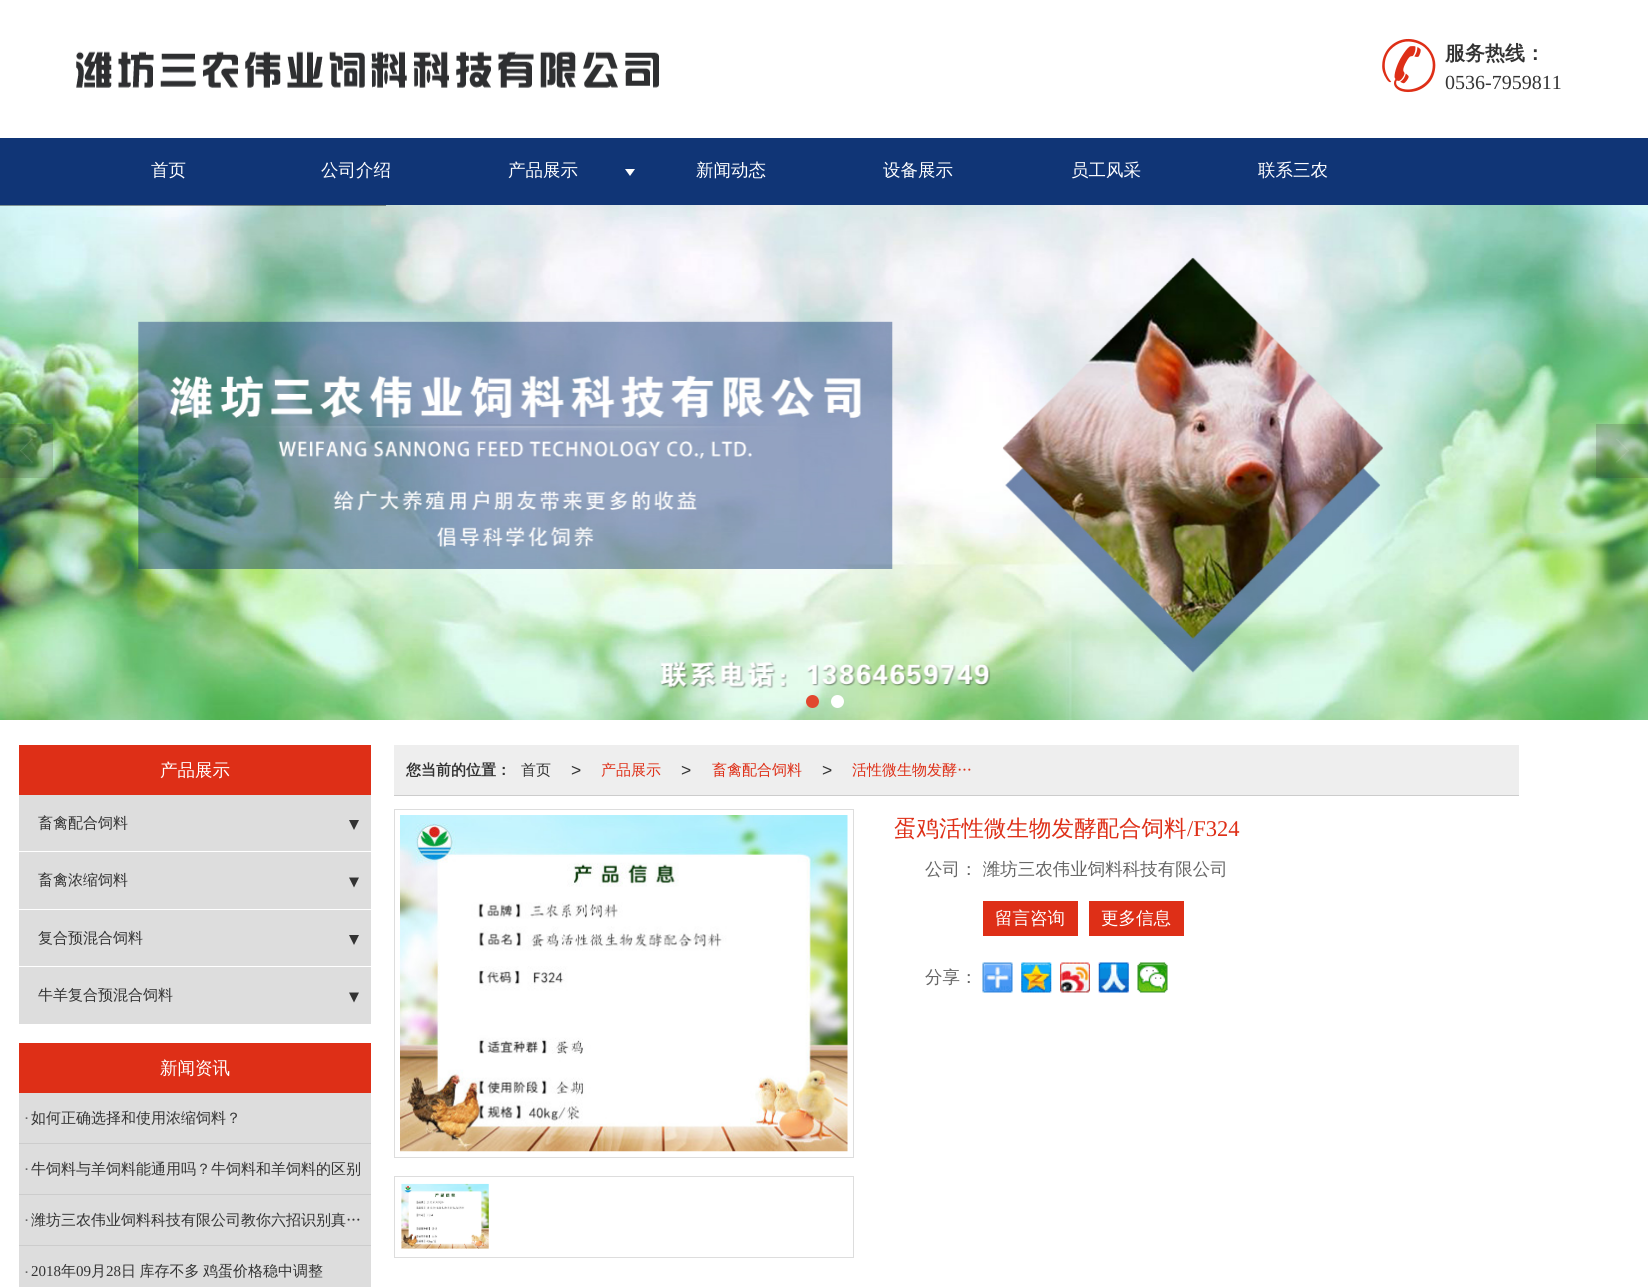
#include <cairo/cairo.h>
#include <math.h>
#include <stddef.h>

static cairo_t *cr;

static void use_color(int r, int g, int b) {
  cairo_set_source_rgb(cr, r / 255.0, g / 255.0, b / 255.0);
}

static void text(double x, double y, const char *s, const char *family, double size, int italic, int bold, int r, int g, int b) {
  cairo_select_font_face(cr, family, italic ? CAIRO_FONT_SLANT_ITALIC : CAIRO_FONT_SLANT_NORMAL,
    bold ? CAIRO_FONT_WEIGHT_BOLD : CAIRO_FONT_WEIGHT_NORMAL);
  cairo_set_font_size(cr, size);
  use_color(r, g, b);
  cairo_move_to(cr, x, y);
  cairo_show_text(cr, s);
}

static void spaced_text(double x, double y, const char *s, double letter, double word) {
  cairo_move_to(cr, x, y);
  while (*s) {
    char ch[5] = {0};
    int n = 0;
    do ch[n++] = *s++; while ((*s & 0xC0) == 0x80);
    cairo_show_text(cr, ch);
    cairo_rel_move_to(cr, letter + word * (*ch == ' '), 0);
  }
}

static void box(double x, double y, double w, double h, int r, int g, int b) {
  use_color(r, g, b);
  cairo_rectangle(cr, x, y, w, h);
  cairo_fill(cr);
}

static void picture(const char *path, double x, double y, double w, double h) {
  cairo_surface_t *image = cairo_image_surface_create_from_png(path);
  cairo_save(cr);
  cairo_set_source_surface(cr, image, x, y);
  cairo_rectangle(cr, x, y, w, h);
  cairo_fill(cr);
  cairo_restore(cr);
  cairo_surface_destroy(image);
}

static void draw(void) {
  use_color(255, 255, 255);
  cairo_paint(cr);
  picture("img_01.png", 76, 51, 583, 37);
  picture("img_02.png", 1382, 38, 54, 55);
  box(0, 138, 1648, 67, 16, 53, 118);
  use_color(255, 255, 255);
  cairo_new_path(cr);
  cairo_move_to(cr, 625, 169);
  cairo_line_to(cr, 635, 169);
  cairo_line_to(cr, 630, 176);
  cairo_close_path(cr);
  cairo_fill(cr);
  picture("img_03.png", 0, 205, 165, 515);
  picture("img_04.png", 165, 205, 165, 515);
  picture("img_05.png", 330, 205, 165, 515);
  picture("img_06.png", 495, 205, 165, 515);
  picture("img_07.png", 660, 205, 165, 515);
  picture("img_08.png", 825, 205, 165, 515);
  picture("img_09.png", 990, 205, 165, 515);
  picture("img_10.png", 1155, 205, 165, 515);
  picture("img_11.png", 1320, 205, 165, 515);
  picture("img_12.png", 1485, 205, 163, 515);
  cairo_set_source_rgba(cr, 0, 0, 0, 0.4);
  cairo_rectangle(cr, 0, 205, 386, 1);
  cairo_fill(cr);
  cairo_set_source_rgba(cr, 0.224, 0.224, 0.224, 0.2);
  cairo_rectangle(cr, 0, 424, 53, 54);
  cairo_fill(cr);
  picture("img_13.png", 20, 438, 13, 25);
  cairo_rectangle(cr, 1596, 424, 52, 54);
  cairo_fill(cr);
  picture("img_14.png", 1616, 439, 13, 24);
  use_color(225, 71, 47);
  cairo_arc(cr, 812.5, 701.5, 6.5, 0, 2 * M_PI);
  cairo_fill(cr);
  use_color(255, 255, 255);
  cairo_arc(cr, 837.5, 701.5, 6.5, 0, 2 * M_PI);
  cairo_fill(cr);
  box(19, 745, 352, 50, 222, 47, 23);
  box(19, 795, 352, 229, 221, 221, 221);
  box(19, 851, 352, 1, 255, 255, 255);
  use_color(51, 51, 51);
  cairo_new_path(cr);
  cairo_move_to(cr, 349, 820);
  cairo_line_to(cr, 359, 820);
  cairo_line_to(cr, 354, 830);
  cairo_close_path(cr);
  cairo_fill(cr);
  box(19, 909, 352, 1, 255, 255, 255);
  use_color(51, 51, 51);
  cairo_new_path(cr);
  cairo_move_to(cr, 349, 877.5);
  cairo_line_to(cr, 359, 877.5);
  cairo_line_to(cr, 354, 887.5);
  cairo_close_path(cr);
  cairo_fill(cr);
  box(19, 966, 352, 1, 255, 255, 255);
  use_color(51, 51, 51);
  cairo_new_path(cr);
  cairo_move_to(cr, 349, 935);
  cairo_line_to(cr, 359, 935);
  cairo_line_to(cr, 354, 945);
  cairo_close_path(cr);
  cairo_fill(cr);
  cairo_new_path(cr);
  cairo_move_to(cr, 349, 992.5);
  cairo_line_to(cr, 359, 992.5);
  cairo_line_to(cr, 354, 1002.5);
  cairo_close_path(cr);
  cairo_fill(cr);
  box(19, 1043, 352, 50, 222, 47, 23);
  box(19, 1093, 352, 194, 221, 221, 221);
  box(19, 1143, 352, 1, 204, 204, 204);
  box(19, 1194, 352, 1, 204, 204, 204);
  box(19, 1245, 352, 1, 204, 204, 204);
  box(394, 745, 1125, 50, 238, 238, 238);
  box(394, 795, 1125, 1, 204, 204, 204);
  cairo_rectangle(cr, 394.5, 809.5, 459, 348);
  use_color(221, 221, 221);
  cairo_set_line_width(cr, 1);
  cairo_stroke(cr);
  picture("img_15.png", 400, 815, 448, 337);
  cairo_rectangle(cr, 394.5, 1176.5, 459, 81);
  cairo_stroke(cr);
  picture("img_16.png", 401, 1183, 88, 66);
  box(983, 901, 95, 35, 222, 47, 23);
  box(1089, 901, 95, 35, 222, 47, 23);
  picture("img_17.png", 982, 962, 31, 31);
  picture("img_18.png", 1021, 962, 31, 31);
  picture("img_19.png", 1060, 962, 30, 31);
  picture("img_20.png", 1098, 962, 31, 31);
  picture("img_21.png", 1137, 962, 31, 31);
  text(1445, 60, "服务热线：", "WenQuanYi Zen Hei", 20, 0, 1, 51, 51, 51);
  text(1445, 89, "0536-7959811", "Liberation Serif", 20, 0, 0, 51, 51, 51);
  text(151, 176, "首页", "WenQuanYi Zen Hei Medium", 17.5, 0, 0, 255, 255, 255);
  text(321, 176, "公司介绍", "WenQuanYi Zen Hei Medium", 17.5, 0, 0, 255, 255, 255);
  text(508, 176, "产品展示", "WenQuanYi Zen Hei Medium", 17.5, 0, 0, 255, 255, 255);
  text(696, 176, "新闻动态", "WenQuanYi Zen Hei Medium", 17.5, 0, 0, 255, 255, 255);
  text(883, 176, "设备展示", "WenQuanYi Zen Hei Medium", 17.5, 0, 0, 255, 255, 255);
  text(1071, 176, "员工风采", "WenQuanYi Zen Hei Medium", 17.5, 0, 0, 255, 255, 255);
  text(1258, 176, "联系三农", "WenQuanYi Zen Hei Medium", 17.5, 0, 0, 255, 255, 255);
  text(160, 776, "产品展示", "WenQuanYi Zen Hei Medium", 17.5, 0, 0, 255, 255, 255);
  text(38, 828, "畜禽配合饲料", "WenQuanYi Zen Hei Medium", 15, 0, 0, 51, 51, 51);
  text(38, 885, "畜禽浓缩饲料", "WenQuanYi Zen Hei Medium", 15, 0, 0, 51, 51, 51);
  text(38, 943, "复合预混合饲料", "WenQuanYi Zen Hei Medium", 15, 0, 0, 51, 51, 51);
  text(38, 1000, "牛羊复合预混合饲料", "WenQuanYi Zen Hei Medium", 15, 0, 0, 51, 51, 51);
  text(160, 1074, "新闻资讯", "WenQuanYi Zen Hei Medium", 17.5, 0, 0, 255, 255, 255);
  text(19, 1119, "．", "WenQuanYi Zen Hei Medium", 15, 0, 0, 102, 102, 102);
  text(31, 1123, "如何正确选择和使用浓缩饲料？", "WenQuanYi Zen Hei Medium", 15, 0, 0, 51, 51, 51);
  text(19, 1170, "．", "WenQuanYi Zen Hei Medium", 15, 0, 0, 102, 102, 102);
  text(31, 1174, "牛饲料与羊饲料能通用吗？牛饲料和羊饲料的区别", "WenQuanYi Zen Hei Medium", 15, 0, 0, 51, 51, 51);
  text(19, 1221, "．", "WenQuanYi Zen Hei Medium", 15, 0, 0, 102, 102, 102);
  text(31, 1225, "潍坊三农伟业饲料科技有限公司教你六招识别真…", "WenQuanYi Zen Hei Medium", 15, 0, 0, 51, 51, 51);
  text(19, 1273, "．", "WenQuanYi Zen Hei Medium", 15, 0, 0, 102, 102, 102);
  text(31, 1276, "2018", "Liberation Serif", 15, 0, 0, 51, 51, 51);
  text(61, 1276, "年", "WenQuanYi Zen Hei Medium", 15, 0, 0, 51, 51, 51);
  text(76, 1276, "09", "Liberation Serif", 15, 0, 0, 51, 51, 51);
  text(91, 1276, "月", "WenQuanYi Zen Hei Medium", 15, 0, 0, 51, 51, 51);
  text(106, 1276, "28", "Liberation Serif", 15, 0, 0, 51, 51, 51);
  cairo_select_font_face(cr, "WenQuanYi Zen Hei Medium", CAIRO_FONT_SLANT_NORMAL, CAIRO_FONT_WEIGHT_NORMAL);
  spaced_text(121, 1276, "日 库存不多 鸡蛋价格稳中调整", 0, -1);
  text(406, 775, "您当前的位置：", "WenQuanYi Zen Hei", 15, 0, 1, 51, 51, 51);
  text(521, 775, "首页", "WenQuanYi Zen Hei Medium", 15, 0, 0, 51, 51, 51);
  text(571, 776, ">", "Liberation Sans", 17.5, 0, 0, 51, 51, 51);
  text(601, 775, "产品展示", "WenQuanYi Zen Hei Medium", 15, 0, 0, 222, 47, 23);
  text(681, 776, ">", "Liberation Sans", 17.5, 0, 0, 51, 51, 51);
  text(712, 775, "畜禽配合饲料", "WenQuanYi Zen Hei Medium", 15, 0, 0, 222, 47, 23);
  text(822, 776, ">", "Liberation Sans", 17.5, 0, 0, 51, 51, 51);
  text(852, 775, "活性微生物发酵…", "WenQuanYi Zen Hei Medium", 15, 0, 0, 222, 47, 23);
  text(894, 836, "蛋鸡活性微生物发酵配合饲料", "WenQuanYi Zen Hei Medium", 22.5, 0, 0, 222, 47, 23);
  text(1187, 836, "/F324", "Liberation Serif", 22.5, 0, 0, 222, 47, 23);
  text(925, 875, "公司： 潍坊三农伟业饲料科技有限公司", "WenQuanYi Zen Hei Medium", 17.5, 0, 0, 102, 102, 102);
  text(995, 924, "留言咨询", "WenQuanYi Zen Hei Medium", 17.5, 0, 0, 255, 255, 255);
  text(1101, 924, "更多信息", "WenQuanYi Zen Hei Medium", 17.5, 0, 0, 255, 255, 255);
  text(925, 983, "分享：", "WenQuanYi Zen Hei Medium", 17.5, 0, 0, 102, 102, 102);
}

int main(void) {
  cairo_surface_t *surface = cairo_image_surface_create(CAIRO_FORMAT_RGB24, 1648, 1287);
  cr = cairo_create(surface);
  cairo_font_options_t *options = cairo_font_options_create();
  cairo_font_options_set_hint_metrics(options, CAIRO_HINT_METRICS_OFF);
  cairo_font_options_set_hint_style(options, CAIRO_HINT_STYLE_NONE);
  cairo_set_font_options(cr, options);
  cairo_set_miter_limit(cr, 4);
  draw();
  cairo_surface_write_to_png(surface, "out.png");
  cairo_font_options_destroy(options);
  cairo_destroy(cr);
  cairo_surface_destroy(surface);
  return 0;
}
